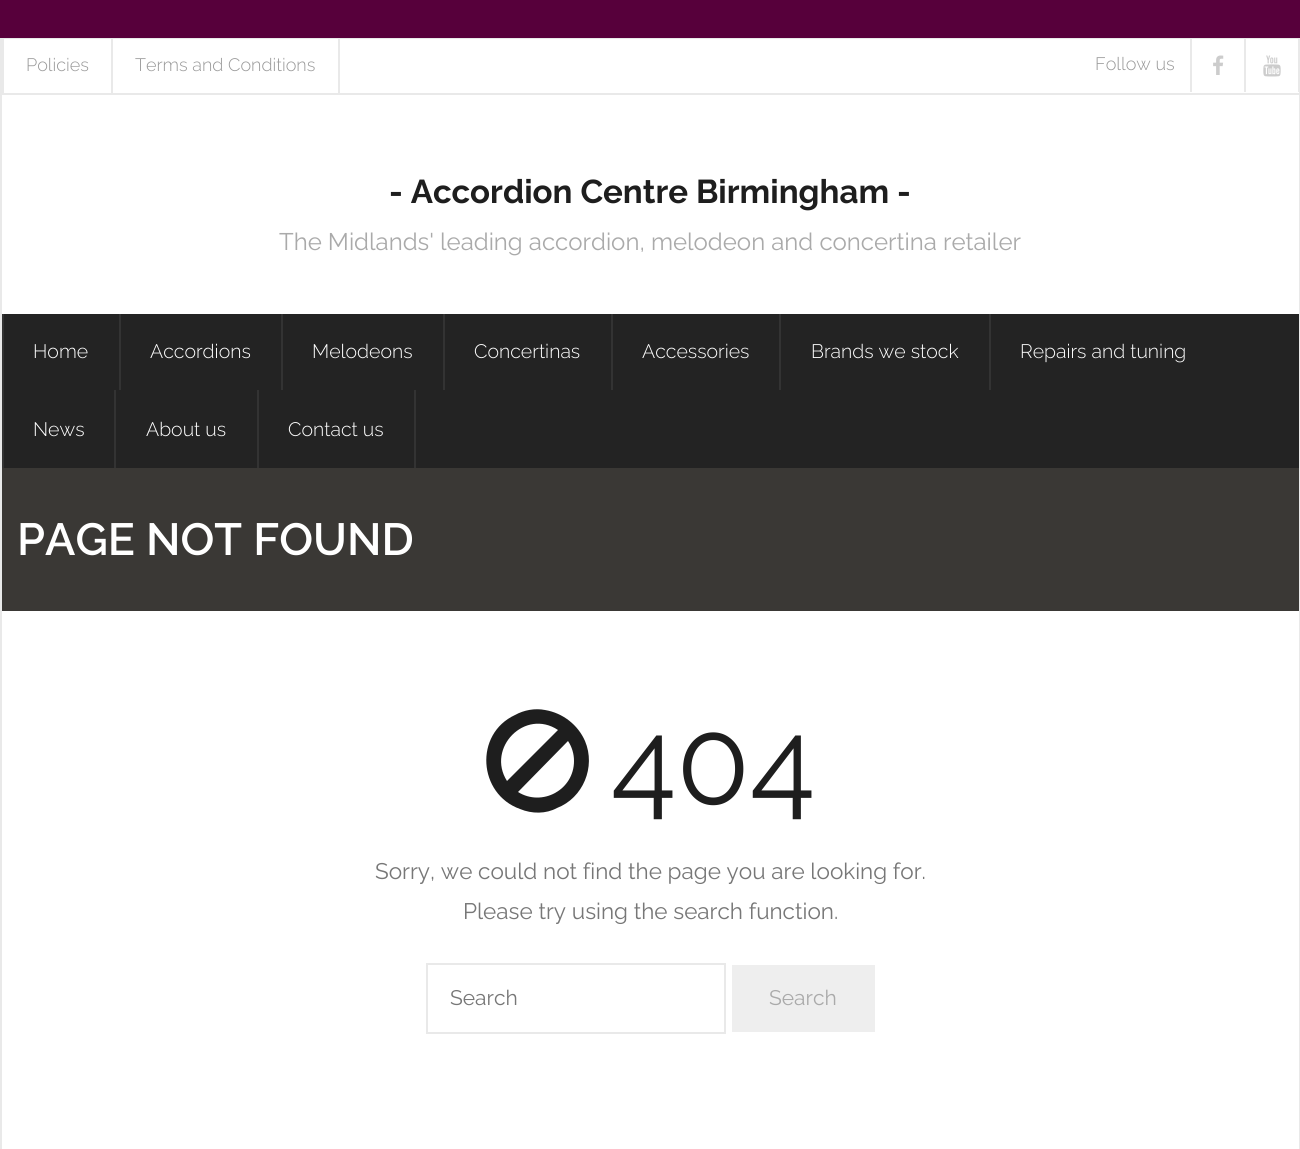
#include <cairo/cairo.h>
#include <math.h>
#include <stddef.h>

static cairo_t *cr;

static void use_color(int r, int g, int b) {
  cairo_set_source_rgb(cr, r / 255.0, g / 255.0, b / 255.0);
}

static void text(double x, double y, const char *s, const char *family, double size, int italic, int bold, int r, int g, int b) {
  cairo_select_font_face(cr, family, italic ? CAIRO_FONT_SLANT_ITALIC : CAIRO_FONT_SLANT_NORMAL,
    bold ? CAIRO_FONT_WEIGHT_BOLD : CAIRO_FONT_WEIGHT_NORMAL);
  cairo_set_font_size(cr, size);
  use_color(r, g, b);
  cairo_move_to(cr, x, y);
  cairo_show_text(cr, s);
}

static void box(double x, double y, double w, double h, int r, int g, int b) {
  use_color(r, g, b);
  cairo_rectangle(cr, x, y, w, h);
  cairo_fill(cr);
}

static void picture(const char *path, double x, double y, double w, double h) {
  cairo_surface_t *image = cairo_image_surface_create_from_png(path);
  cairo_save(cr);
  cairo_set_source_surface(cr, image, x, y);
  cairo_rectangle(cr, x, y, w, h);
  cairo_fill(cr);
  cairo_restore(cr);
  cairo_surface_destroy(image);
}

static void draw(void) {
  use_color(87, 0, 59);
  cairo_paint(cr);
  box(2, 95, 1297, 1054, 255, 255, 255);
  cairo_rectangle(cr, 1, 39, 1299, 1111);
  use_color(233, 233, 233);
  cairo_stroke(cr);
  box(4, 39, 1295, 54, 255, 255, 255);
  box(2, 93, 1297, 2, 233, 233, 233);
  box(2, 39, 2, 54, 233, 233, 233);
  box(338, 39, 2, 54, 233, 233, 233);
  box(111, 39, 2, 54, 233, 233, 233);
  box(1190, 39, 2, 53, 233, 233, 233);
  picture("img_01.png", 1213, 55, 11, 20);
  box(1298, 39, 1, 53, 233, 233, 233);
  box(1244, 39, 2, 53, 233, 233, 233);
  picture("img_02.png", 1263, 55, 18, 22);
  box(4, 314, 1295, 154, 35, 35, 35);
  box(2, 314, 2, 154, 51, 51, 51);
  box(119, 314, 2, 76, 51, 51, 51);
  box(281, 314, 2, 76, 51, 51, 51);
  box(443, 314, 2, 76, 51, 51, 51);
  box(611, 314, 2, 76, 51, 51, 51);
  box(779, 314, 2, 76, 51, 51, 51);
  box(989, 314, 2, 76, 51, 51, 51);
  box(114, 390, 2, 78, 51, 51, 51);
  box(414, 390, 2, 78, 51, 51, 51);
  box(257, 390, 2, 78, 51, 51, 51);
  box(2, 468, 1297, 143, 58, 56, 53);
  use_color(30, 30, 30);
  cairo_new_path(cr);
  cairo_move_to(cr, 574, 761);
  cairo_curve_to(cr, 574, 754, 572, 747, 568, 741);
  cairo_line_to(cr, 518, 792);
  cairo_curve_to(cr, 542, 807, 574, 790, 574, 761);
  cairo_close_path(cr);
  cairo_move_to(cr, 507, 781);
  cairo_line_to(cr, 558, 730);
  cairo_curve_to(cr, 525, 708, 486, 748, 507, 781);
  cairo_close_path(cr);
  cairo_move_to(cr, 585, 741);
  cairo_curve_to(cr, 596, 767, 583, 798, 557, 808);
  cairo_curve_to(cr, 546, 814, 532, 814, 520, 809);
  cairo_curve_to(cr, 478, 794, 474, 734, 515, 715);
  cairo_curve_to(cr, 524, 710, 535, 708, 545, 710);
  cairo_curve_to(cr, 563, 713, 578, 725, 585, 741);
  cairo_close_path(cr);
  cairo_fill(cr);
  cairo_rectangle(cr, 427, 964, 298, 69);
  use_color(233, 233, 233);
  cairo_stroke(cr);
  box(732, 965, 143, 67, 238, 238, 238);
  text(26, 71, "Policies", "Raleway Light", 18, 0, 0, 153, 153, 153);
  text(135, 71, "Terms and Conditions", "Raleway Light", 18, 0, 0, 153, 153, 153);
  text(1095, 70, "Follow us", "Raleway Light", 18, 0, 0, 153, 153, 153);
  text(389, 203, "- Accordion Centre Birmingham -", "Raleway", 33, 0, 1, 30, 30, 30);
  text(279, 250, "The Midlands' leading accordion, melodeon and concertina retailer", "Raleway", 24, 0, 0, 170, 170, 170);
  text(33, 358, "Home", "Raleway Light", 19.5, 0, 0, 255, 255, 255);
  text(150, 358, "Accordions", "Raleway Light", 19.5, 0, 0, 255, 255, 255);
  text(312, 358, "Melodeons", "Raleway Light", 19.5, 0, 0, 255, 255, 255);
  text(474, 358, "Concertinas", "Raleway Light", 19.5, 0, 0, 255, 255, 255);
  text(642, 358, "Accessories", "Raleway Light", 19.5, 0, 0, 255, 255, 255);
  text(811, 358, "Brands we stock", "Raleway Light", 19.5, 0, 0, 255, 255, 255);
  text(1020, 358, "Repairs and tuning", "Raleway Light", 19.5, 0, 0, 255, 255, 255);
  text(33, 436, "News", "Raleway Light", 19.5, 0, 0, 255, 255, 255);
  text(146, 436, "About us", "Raleway Light", 19.5, 0, 0, 255, 255, 255);
  text(288, 436, "Contact us", "Raleway Light", 19.5, 0, 0, 255, 255, 255);
  text(17, 555, "PAGE NOT FOUND", "Raleway SemiBold", 45, 0, 0, 255, 255, 255);
  text(611, 804, "404", "Raleway", 120, 0, 0, 30, 30, 30);
  text(375, 879, "Sorry, we could not find the page you are looking for.", "Raleway", 22.5, 0, 0, 119, 119, 119);
  text(463, 919, "Please try using the search function.", "Raleway", 22.5, 0, 0, 119, 119, 119);
  text(450, 1005, "Search", "Raleway", 21, 0, 0, 119, 119, 119);
  text(769, 1005, "Search", "Raleway", 21, 0, 0, 170, 170, 170);
}

int main(void) {
  cairo_surface_t *surface = cairo_image_surface_create(CAIRO_FORMAT_RGB24, 1300, 1149);
  cr = cairo_create(surface);
  cairo_font_options_t *options = cairo_font_options_create();
  cairo_font_options_set_hint_metrics(options, CAIRO_HINT_METRICS_OFF);
  cairo_font_options_set_hint_style(options, CAIRO_HINT_STYLE_NONE);
  cairo_set_font_options(cr, options);
  cairo_set_miter_limit(cr, 4);
  draw();
  cairo_surface_write_to_png(surface, "out.png");
  cairo_font_options_destroy(options);
  cairo_destroy(cr);
  cairo_surface_destroy(surface);
  return 0;
}
